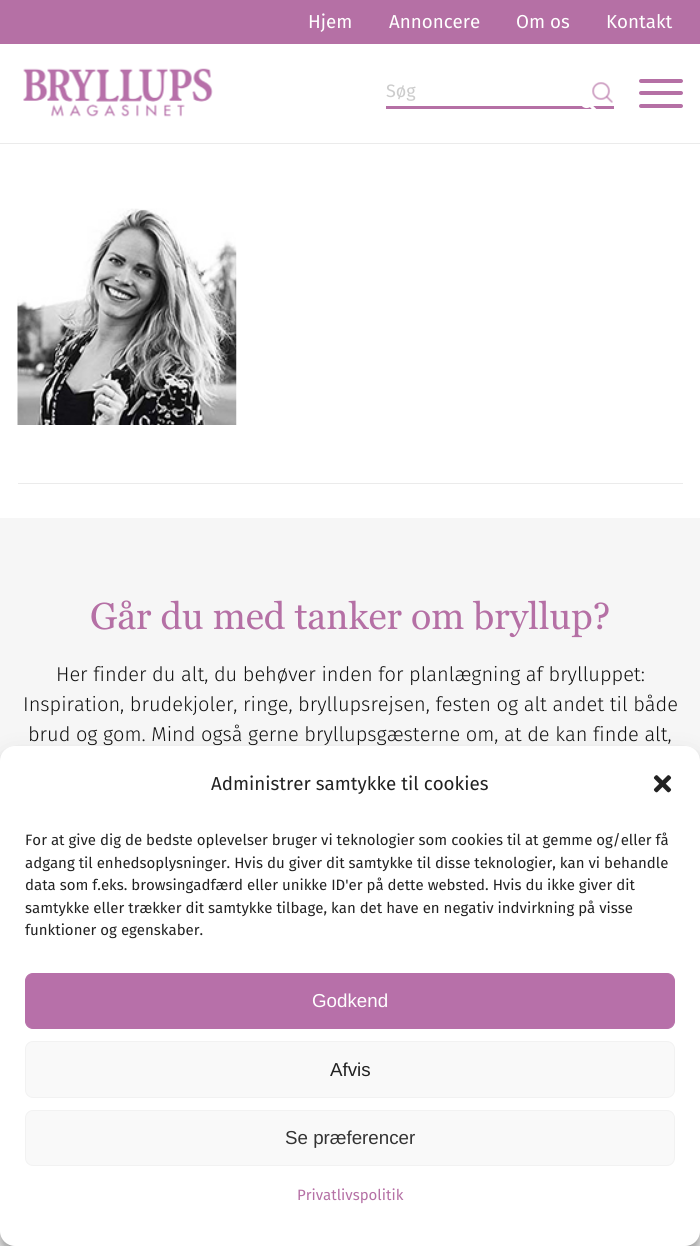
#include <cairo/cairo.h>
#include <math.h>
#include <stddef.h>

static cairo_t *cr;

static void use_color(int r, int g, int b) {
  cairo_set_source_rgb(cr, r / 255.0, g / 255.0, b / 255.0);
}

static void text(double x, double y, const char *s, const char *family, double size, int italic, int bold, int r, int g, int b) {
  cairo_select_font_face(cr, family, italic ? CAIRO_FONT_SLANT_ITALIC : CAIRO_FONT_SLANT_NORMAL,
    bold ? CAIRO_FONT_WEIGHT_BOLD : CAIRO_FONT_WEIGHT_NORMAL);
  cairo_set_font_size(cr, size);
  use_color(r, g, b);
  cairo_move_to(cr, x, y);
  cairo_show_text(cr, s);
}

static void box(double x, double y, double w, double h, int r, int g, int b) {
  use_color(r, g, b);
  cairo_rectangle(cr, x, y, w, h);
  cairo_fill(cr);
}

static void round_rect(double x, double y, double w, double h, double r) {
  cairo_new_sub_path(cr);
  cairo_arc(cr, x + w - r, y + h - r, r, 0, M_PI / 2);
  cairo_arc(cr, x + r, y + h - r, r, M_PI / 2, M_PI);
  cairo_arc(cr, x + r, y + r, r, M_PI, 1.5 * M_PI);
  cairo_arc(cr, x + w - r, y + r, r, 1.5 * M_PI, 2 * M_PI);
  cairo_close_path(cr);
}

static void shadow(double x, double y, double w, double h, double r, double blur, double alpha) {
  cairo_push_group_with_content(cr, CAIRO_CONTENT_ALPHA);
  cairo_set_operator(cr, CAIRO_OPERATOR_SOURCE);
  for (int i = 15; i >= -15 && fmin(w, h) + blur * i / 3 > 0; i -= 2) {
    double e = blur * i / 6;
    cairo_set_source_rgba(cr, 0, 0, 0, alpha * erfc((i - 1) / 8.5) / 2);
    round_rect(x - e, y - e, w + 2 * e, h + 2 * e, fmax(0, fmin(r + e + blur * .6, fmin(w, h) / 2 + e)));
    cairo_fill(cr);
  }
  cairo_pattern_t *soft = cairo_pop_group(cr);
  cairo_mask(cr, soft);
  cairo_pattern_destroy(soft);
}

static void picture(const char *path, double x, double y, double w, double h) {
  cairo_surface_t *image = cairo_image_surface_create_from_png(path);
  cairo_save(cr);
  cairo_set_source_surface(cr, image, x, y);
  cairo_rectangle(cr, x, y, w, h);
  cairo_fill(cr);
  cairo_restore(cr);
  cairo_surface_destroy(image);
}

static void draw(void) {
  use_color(255, 255, 255);
  cairo_paint(cr);
  box(0, 143, 700, 1, 235, 235, 235);
  box(0, 0, 700, 44, 181, 112, 165);
  picture("img_01.png", 23, 68, 190, 49);
  box(386, 106, 228, 3, 181, 112, 165);
  picture("img_02.png", 592, 82, 21, 21);
  picture("img_03.png", 582, 106, 15, 3);
  round_rect(639, 91, 44, 4, 2);
  cairo_fill(cr);
  round_rect(639, 79, 44, 4, 2);
  cairo_fill(cr);
  round_rect(639, 104, 44, 4, 2);
  cairo_fill(cr);
  picture("img_04.png", 17, 208, 220, 217);
  box(18, 483, 665, 1, 235, 235, 235);
  box(0, 518, 700, 728, 246, 246, 246);
  use_color(0, 0, 0);
  shadow(0, 754, 700, 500, 15, 4, 0.23);
  shadow(0, 759, 700, 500, 15, 12.5, 0.19);
  use_color(255, 255, 255);
  round_rect(0, 746, 700, 500, 15);
  cairo_fill(cr);
  picture("img_05.png", 653, 775, 19, 18);
  use_color(183, 112, 169);
  round_rect(25.5, 973.5, 649, 55, 7.5);
  cairo_fill_preserve(cr);
  cairo_set_line_width(cr, 1);
  cairo_stroke(cr);
  use_color(249, 249, 249);
  round_rect(25.5, 1041.5, 649, 56, 7.5);
  cairo_fill_preserve(cr);
  use_color(242, 242, 242);
  cairo_stroke(cr);
  use_color(249, 249, 249);
  round_rect(25.5, 1110.5, 649, 55, 7.5);
  cairo_fill_preserve(cr);
  use_color(242, 242, 242);
  cairo_stroke(cr);
  text(308, 28, "Hjem", "Fira Sans", 18.75, 0, 0, 255, 255, 255);
  text(389, 28, "Annoncere", "Fira Sans", 18.75, 0, 0, 255, 255, 255);
  text(516, 28, "Om os", "Fira Sans", 18.75, 0, 0, 255, 255, 255);
  text(606, 28, "Kontakt", "Fira Sans", 18.75, 0, 0, 255, 255, 255);
  text(386, 97, "Søg", "Fira Sans", 18, 0, 0, 204, 204, 204);
  text(90, 629, "Går du med tanker om bryllup?", "Georgia", 37.5, 0, 0, 181, 112, 165);
  text(56, 681, "Her finder du alt, du behøver inden for planlægning af brylluppet:", "Fira Sans Light", 20, 0, 0, 18, 18, 18);
  text(23, 711, "Inspiration, brudekjoler, ringe, bryllupsrejsen, festen og alt andet til både", "Fira Sans Light", 20, 0, 0, 18, 18, 18);
  text(28, 741, "brud og gom. Mind også gerne bryllupsgæsterne om, at de kan finde alt,", "Fira Sans Light", 20, 0, 0, 18, 18, 18);
  text(211, 790, "Administrer samtykke til cookies", "Fira Sans", 18.75, 0, 0, 34, 34, 34);
  text(25, 845, "For at give dig de bedste oplevelser bruger vi teknologier som cookies til at gemme og/eller få", "Fira Sans", 15, 0, 0, 34, 34, 34);
  text(25, 868, "adgang til enhedsoplysninger. Hvis du giver dit samtykke til disse teknologier, kan vi behandle", "Fira Sans", 15, 0, 0, 34, 34, 34);
  text(25, 890, "data som f.eks. browsingadfærd eller unikke ID'er på dette websted. Hvis du ikke giver dit", "Fira Sans", 15, 0, 0, 34, 34, 34);
  text(25, 913, "samtykke eller trækker dit samtykke tilbage, kan det have en negativ indvirkning på visse", "Fira Sans", 15, 0, 0, 34, 34, 34);
  text(25, 935, "funktioner og egenskaber.", "Fira Sans", 15, 0, 0, 34, 34, 34);
  text(312, 1007, "Godkend", "Liberation Sans", 18.75, 0, 0, 255, 255, 255);
  text(330, 1076, "Afvis", "Liberation Sans", 18.75, 0, 0, 34, 34, 34);
  text(285, 1144, "Se præferencer", "Liberation Sans", 18.75, 0, 0, 51, 51, 51);
  text(297, 1200, "Privatlivspolitik", "Fira Sans", 15, 0, 0, 181, 112, 165);
}

int main(void) {
  cairo_surface_t *surface = cairo_image_surface_create(CAIRO_FORMAT_RGB24, 700, 1246);
  cr = cairo_create(surface);
  cairo_font_options_t *options = cairo_font_options_create();
  cairo_font_options_set_hint_metrics(options, CAIRO_HINT_METRICS_OFF);
  cairo_font_options_set_hint_style(options, CAIRO_HINT_STYLE_NONE);
  cairo_set_font_options(cr, options);
  cairo_set_miter_limit(cr, 4);
  draw();
  cairo_surface_write_to_png(surface, "out.png");
  cairo_font_options_destroy(options);
  cairo_destroy(cr);
  cairo_surface_destroy(surface);
  return 0;
}
